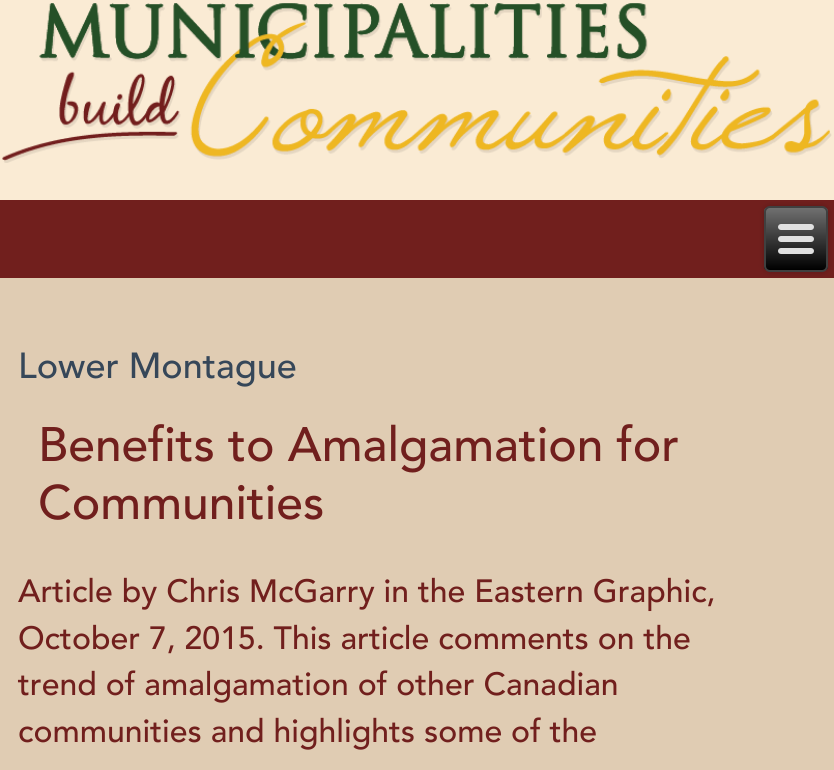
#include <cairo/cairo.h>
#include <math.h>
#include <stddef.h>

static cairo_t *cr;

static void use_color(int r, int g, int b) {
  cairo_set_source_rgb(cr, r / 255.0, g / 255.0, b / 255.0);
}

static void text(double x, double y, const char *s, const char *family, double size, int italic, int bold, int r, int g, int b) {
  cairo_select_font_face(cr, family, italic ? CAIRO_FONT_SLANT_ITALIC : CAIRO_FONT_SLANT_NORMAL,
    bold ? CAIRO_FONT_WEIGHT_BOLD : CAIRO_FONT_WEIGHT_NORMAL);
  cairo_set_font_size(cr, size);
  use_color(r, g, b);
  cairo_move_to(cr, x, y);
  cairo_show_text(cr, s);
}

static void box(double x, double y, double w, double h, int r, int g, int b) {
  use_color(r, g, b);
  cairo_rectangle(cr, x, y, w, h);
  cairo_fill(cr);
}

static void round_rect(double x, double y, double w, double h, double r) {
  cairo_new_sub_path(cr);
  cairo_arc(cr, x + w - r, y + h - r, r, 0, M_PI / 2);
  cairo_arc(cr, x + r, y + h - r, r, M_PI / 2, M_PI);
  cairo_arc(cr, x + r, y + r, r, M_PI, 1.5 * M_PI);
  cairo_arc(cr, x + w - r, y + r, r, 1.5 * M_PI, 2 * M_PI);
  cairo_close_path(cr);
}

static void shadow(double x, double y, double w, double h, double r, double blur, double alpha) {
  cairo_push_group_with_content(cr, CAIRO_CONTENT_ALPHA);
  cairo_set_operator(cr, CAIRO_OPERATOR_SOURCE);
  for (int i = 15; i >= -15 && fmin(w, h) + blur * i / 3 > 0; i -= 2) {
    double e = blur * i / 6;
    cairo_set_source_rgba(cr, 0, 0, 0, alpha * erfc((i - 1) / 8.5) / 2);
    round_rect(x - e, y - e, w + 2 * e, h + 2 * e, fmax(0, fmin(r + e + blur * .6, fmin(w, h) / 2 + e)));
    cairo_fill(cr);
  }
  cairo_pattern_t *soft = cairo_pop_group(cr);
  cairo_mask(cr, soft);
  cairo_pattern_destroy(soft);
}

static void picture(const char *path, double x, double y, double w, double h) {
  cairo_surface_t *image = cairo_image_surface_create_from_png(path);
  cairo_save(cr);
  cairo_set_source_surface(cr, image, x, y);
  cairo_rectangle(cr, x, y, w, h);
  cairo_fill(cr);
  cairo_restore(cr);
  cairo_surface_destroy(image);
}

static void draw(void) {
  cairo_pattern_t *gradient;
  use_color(224, 204, 179);
  cairo_paint(cr);
  box(0, 0, 834, 200, 250, 235, 212);
  picture("img_01.png", 2, 3, 830, 160);
  box(0, 200, 834, 78, 113, 31, 29);
  use_color(0, 0, 0);
  shadow(764, 206, 64, 66, 6, 3, 0.2);
  cairo_save(cr);
  round_rect(764, 206, 64, 66, 6);
  cairo_clip(cr);
  gradient = cairo_pattern_create_linear(796, 208, 796, 270);
  cairo_pattern_add_color_stop_rgba(gradient, 0, 0.439, 0.439, 0.439, 1);
  cairo_pattern_add_color_stop_rgba(gradient, 1, 0, 0, 0, 1);
  cairo_set_source(cr, gradient);
  cairo_pattern_destroy(gradient);
  cairo_rectangle(cr, 764, 208, 64, 62);
  cairo_fill(cr);
  cairo_restore(cr);
  round_rect(765, 207, 62, 64, 5);
  use_color(64, 64, 64);
  cairo_stroke(cr);
  use_color(224, 224, 224);
  round_rect(778, 224, 36, 6, 3);
  cairo_fill(cr);
  round_rect(778, 236, 36, 6, 3);
  cairo_fill(cr);
  round_rect(778, 248, 36, 6, 3);
  cairo_fill(cr);
  text(18, 378, "Lower Montague", "Avenir Medium", 36, 0, 0, 54, 71, 89);
  text(38, 461, "Benefits to Amalgamation for", "Avenir Medium", 48, 0, 0, 113, 31, 29);
  text(38, 519, "Communities", "Avenir Medium", 48, 0, 0, 113, 31, 29);
  text(18, 602, "Article by Chris McGarry in the Eastern Graphic,", "Avenir Medium", 32, 0, 0, 113, 31, 29);
  text(18, 649, "October 7, 2015. This article comments on the", "Avenir Medium", 32, 0, 0, 113, 31, 29);
  text(18, 695, "trend of amalgamation of other Canadian", "Avenir Medium", 32, 0, 0, 113, 31, 29);
  text(18, 742, "communities and highlights some of the", "Avenir Medium", 32, 0, 0, 113, 31, 29);
}

int main(void) {
  cairo_surface_t *surface = cairo_image_surface_create(CAIRO_FORMAT_RGB24, 834, 770);
  cr = cairo_create(surface);
  cairo_font_options_t *options = cairo_font_options_create();
  cairo_font_options_set_hint_metrics(options, CAIRO_HINT_METRICS_OFF);
  cairo_font_options_set_hint_style(options, CAIRO_HINT_STYLE_NONE);
  cairo_set_font_options(cr, options);
  cairo_set_miter_limit(cr, 4);
  draw();
  cairo_surface_write_to_png(surface, "out.png");
  cairo_font_options_destroy(options);
  cairo_destroy(cr);
  cairo_surface_destroy(surface);
  return 0;
}
